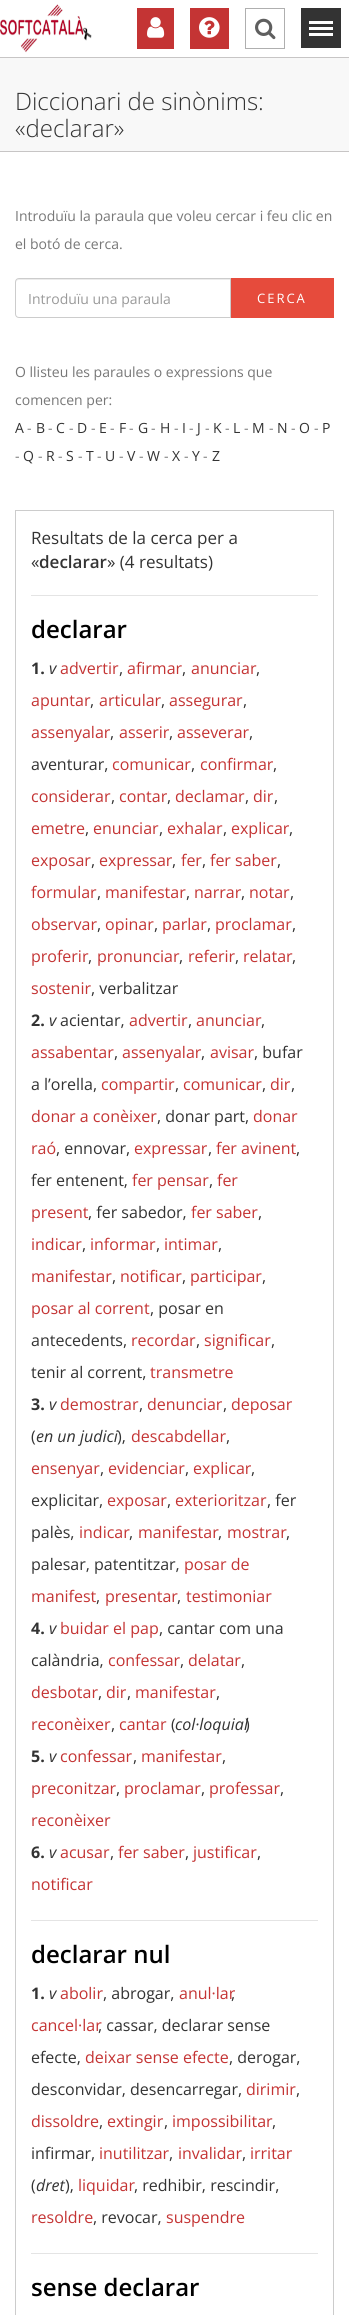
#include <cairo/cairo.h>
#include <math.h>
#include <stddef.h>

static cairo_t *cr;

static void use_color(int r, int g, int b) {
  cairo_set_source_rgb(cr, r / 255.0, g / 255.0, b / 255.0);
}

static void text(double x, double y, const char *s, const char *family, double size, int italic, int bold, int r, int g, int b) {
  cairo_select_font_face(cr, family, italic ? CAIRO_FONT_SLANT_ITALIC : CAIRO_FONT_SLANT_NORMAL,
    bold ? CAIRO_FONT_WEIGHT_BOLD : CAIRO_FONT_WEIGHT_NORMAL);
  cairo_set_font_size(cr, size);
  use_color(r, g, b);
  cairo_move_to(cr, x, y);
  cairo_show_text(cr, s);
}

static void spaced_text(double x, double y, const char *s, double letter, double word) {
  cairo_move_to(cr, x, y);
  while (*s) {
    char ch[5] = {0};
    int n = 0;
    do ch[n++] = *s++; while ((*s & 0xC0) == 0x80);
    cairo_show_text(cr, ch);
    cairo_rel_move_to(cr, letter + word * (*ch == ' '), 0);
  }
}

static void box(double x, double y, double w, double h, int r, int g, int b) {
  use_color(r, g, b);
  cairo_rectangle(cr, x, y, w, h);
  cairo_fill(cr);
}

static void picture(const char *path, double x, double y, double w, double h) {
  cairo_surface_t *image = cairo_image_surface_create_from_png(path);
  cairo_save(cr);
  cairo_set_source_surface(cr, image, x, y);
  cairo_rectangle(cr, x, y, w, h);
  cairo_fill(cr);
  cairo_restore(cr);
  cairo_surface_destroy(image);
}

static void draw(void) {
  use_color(255, 255, 255);
  cairo_paint(cr);
  picture("img_01.png", 0, 4, 92, 49);
  box(137, 8, 37, 41, 196, 52, 52);
  picture("img_02.png", 147, 17, 18, 21);
  box(190, 8, 39, 41, 196, 52, 52);
  picture("img_03.png", 199, 17, 21, 21);
  cairo_rectangle(cr, 245.5, 8.5, 39, 40);
  use_color(175, 175, 175);
  cairo_set_line_width(cr, 1);
  cairo_stroke(cr);
  picture("img_04.png", 255, 18, 21, 22);
  box(301, 8, 40, 40, 51, 51, 51);
  box(309, 27, 24, 3, 255, 255, 255);
  box(309, 21, 24, 3, 255, 255, 255);
  box(309, 33, 24, 3, 255, 255, 255);
  box(0, 58, 349, 93, 248, 248, 248);
  box(0, 57, 349, 1, 199, 197, 197);
  box(0, 151, 349, 1, 199, 197, 197);
  use_color(236, 236, 236);
  cairo_new_path(cr);
  cairo_move_to(cr, 19, 280);
  cairo_line_to(cr, 230, 280);
  cairo_line_to(cr, 230, 279);
  cairo_line_to(cr, 19, 279);
  cairo_curve_to(cr, 17, 279, 16, 280, 16, 282);
  cairo_line_to(cr, 16, 283);
  cairo_curve_to(cr, 16, 281, 17, 280, 19, 280);
  cairo_close_path(cr);
  cairo_fill(cr);
  cairo_new_path(cr);
  cairo_move_to(cr, 19, 278.5);
  cairo_line_to(cr, 230.5, 278.5);
  cairo_line_to(cr, 230.5, 317.5);
  cairo_line_to(cr, 19, 317.5);
  cairo_curve_to(cr, 17, 317.5, 15.5, 316, 15.5, 314);
  cairo_line_to(cr, 15.5, 282);
  cairo_curve_to(cr, 15.5, 280, 17, 278.5, 19, 278.5);
  cairo_close_path(cr);
  use_color(204, 204, 204);
  cairo_stroke(cr);
  box(231, 278, 103, 40, 230, 75, 60);
  cairo_rectangle(cr, 15.5, 510.5, 318, 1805);
  use_color(204, 204, 204);
  cairo_stroke(cr);
  box(31, 595, 287, 1, 228, 228, 228);
  box(31, 1920, 287, 1, 228, 228, 228);
  box(31, 2253, 287, 1, 228, 228, 228);
  text(15, 110, "Diccionari de sinònims:", "Open Sans Light", 24, 0, 0, 51, 51, 51);
  text(15, 137, "«declarar»", "Open Sans Light", 24, 0, 0, 51, 51, 51);
  text(15, 221, "Introduïu la paraula que voleu cercar i feu clic en", "Open Sans", 14, 0, 0, 119, 119, 119);
  text(15, 249, "el botó de cerca.", "Open Sans", 14, 0, 0, 119, 119, 119);
  text(28, 304, "Introduïu una paraula", "Open Sans", 14, 0, 0, 153, 153, 153);
  cairo_set_font_size(cr, 13);
  use_color(255, 255, 255);
  spaced_text(257, 303, "CERCA", 2, 0);
  text(15, 377, "O llisteu les paraules o expressions que", "Open Sans", 14, 0, 0, 119, 119, 119);
  text(15, 405, "comencen per:", "Open Sans", 14, 0, 0, 119, 119, 119);
  text(15, 433, "A", "Open Sans", 14, 0, 0, 51, 51, 51);
  text(27, 433, "-", "Open Sans", 14, 0, 0, 119, 119, 119);
  text(36, 433, "B", "Open Sans", 14, 0, 0, 51, 51, 51);
  text(48, 433, "-", "Open Sans", 14, 0, 0, 119, 119, 119);
  text(56, 433, "C", "Open Sans", 14, 0, 0, 51, 51, 51);
  text(69, 433, "-", "Open Sans", 14, 0, 0, 119, 119, 119);
  text(77, 433, "D", "Open Sans", 14, 0, 0, 51, 51, 51);
  text(91, 433, "-", "Open Sans", 14, 0, 0, 119, 119, 119);
  text(99, 433, "E", "Open Sans", 14, 0, 0, 51, 51, 51);
  text(110, 433, "-", "Open Sans", 14, 0, 0, 119, 119, 119);
  text(119, 433, "F", "Open Sans", 14, 0, 0, 51, 51, 51);
  text(129, 433, "-", "Open Sans", 14, 0, 0, 119, 119, 119);
  text(138, 433, "G", "Open Sans", 14, 0, 0, 51, 51, 51);
  text(151, 433, "-", "Open Sans", 14, 0, 0, 119, 119, 119);
  text(160, 433, "H", "Open Sans", 14, 0, 0, 51, 51, 51);
  text(174, 433, "-", "Open Sans", 14, 0, 0, 119, 119, 119);
  text(182, 433, "I", "Open Sans", 14, 0, 0, 51, 51, 51);
  text(189, 433, "-", "Open Sans", 14, 0, 0, 119, 119, 119);
  text(197, 433, "J", "Open Sans", 14, 0, 0, 51, 51, 51);
  text(205, 433, "-", "Open Sans", 14, 0, 0, 119, 119, 119);
  text(213, 433, "K", "Open Sans", 14, 0, 0, 51, 51, 51);
  text(225, 433, "-", "Open Sans", 14, 0, 0, 119, 119, 119);
  text(233, 433, "L", "Open Sans", 14, 0, 0, 51, 51, 51);
  text(244, 433, "-", "Open Sans", 14, 0, 0, 119, 119, 119);
  text(252, 433, "M", "Open Sans", 14, 0, 0, 51, 51, 51);
  text(269, 433, "-", "Open Sans", 14, 0, 0, 119, 119, 119);
  text(277, 433, "N", "Open Sans", 14, 0, 0, 51, 51, 51);
  text(291, 433, "-", "Open Sans", 14, 0, 0, 119, 119, 119);
  text(299, 433, "O", "Open Sans", 14, 0, 0, 51, 51, 51);
  text(314, 433, "-", "Open Sans", 14, 0, 0, 119, 119, 119);
  text(322, 433, "P", "Open Sans", 14, 0, 0, 51, 51, 51);
  text(15, 461, "-", "Open Sans", 14, 0, 0, 119, 119, 119);
  text(23, 461, "Q", "Open Sans", 14, 0, 0, 51, 51, 51);
  text(38, 461, "-", "Open Sans", 14, 0, 0, 119, 119, 119);
  text(46, 461, "R", "Open Sans", 14, 0, 0, 51, 51, 51);
  text(58, 461, "-", "Open Sans", 14, 0, 0, 119, 119, 119);
  text(66, 461, "S", "Open Sans", 14, 0, 0, 51, 51, 51);
  text(78, 461, "-", "Open Sans", 14, 0, 0, 119, 119, 119);
  text(86, 461, "T", "Open Sans", 14, 0, 0, 51, 51, 51);
  text(97, 461, "-", "Open Sans", 14, 0, 0, 119, 119, 119);
  text(105, 461, "U", "Open Sans", 14, 0, 0, 51, 51, 51);
  text(119, 461, "-", "Open Sans", 14, 0, 0, 119, 119, 119);
  text(127, 461, "V", "Open Sans", 14, 0, 0, 51, 51, 51);
  text(139, 461, "-", "Open Sans", 14, 0, 0, 119, 119, 119);
  text(147, 461, "W", "Open Sans", 14, 0, 0, 51, 51, 51);
  text(164, 461, "-", "Open Sans", 14, 0, 0, 119, 119, 119);
  text(172, 461, "X", "Open Sans", 14, 0, 0, 51, 51, 51);
  text(184, 461, "-", "Open Sans", 14, 0, 0, 119, 119, 119);
  text(192, 461, "Y", "Open Sans", 14, 0, 0, 51, 51, 51);
  text(203, 461, "-", "Open Sans", 14, 0, 0, 119, 119, 119);
  text(212, 461, "Z", "Open Sans", 14, 0, 0, 51, 51, 51);
  text(31, 544, "Resultats de la cerca per a", "Open Sans", 17, 0, 0, 51, 51, 51);
  text(31, 568, "«", "Open Sans", 17, 0, 0, 51, 51, 51);
  text(39, 568, "declarar", "Open Sans SemiBold", 17, 0, 0, 51, 51, 51);
  text(107, 568, "» (4 resultats)", "Open Sans", 17, 0, 0, 51, 51, 51);
  text(31, 638, "declarar", "Open Sans SemiBold", 24, 0, 0, 0, 0, 0);
  text(31, 674, "1.", "Open Sans", 16, 0, 1, 51, 51, 51);
  text(49, 674, "v", "Open Sans", 16, 1, 0, 51, 51, 51);
  text(60, 674, "advertir", "Open Sans", 16, 0, 0, 196, 52, 52);
  text(127, 674, "afirmar", "Open Sans", 16, 0, 0, 196, 52, 52);
  text(191, 674, "anunciar", "Open Sans", 16, 0, 0, 196, 52, 52);
  text(119, 674, ",", "Open Sans", 16, 0, 0, 51, 51, 51);
  text(182, 674, ",", "Open Sans", 16, 0, 0, 51, 51, 51);
  text(256, 674, ",", "Open Sans", 16, 0, 0, 51, 51, 51);
  text(31, 706, "apuntar", "Open Sans", 16, 0, 0, 196, 52, 52);
  text(90, 706, ",", "Open Sans", 16, 0, 0, 51, 51, 51);
  text(99, 706, "articular", "Open Sans", 16, 0, 0, 196, 52, 52);
  text(161, 706, ",", "Open Sans", 16, 0, 0, 51, 51, 51);
  text(169, 706, "assegurar", "Open Sans", 16, 0, 0, 196, 52, 52);
  text(243, 706, ",", "Open Sans", 16, 0, 0, 51, 51, 51);
  text(31, 738, "assenyalar", "Open Sans", 16, 0, 0, 196, 52, 52);
  text(110, 738, ",", "Open Sans", 16, 0, 0, 51, 51, 51);
  text(119, 738, "asserir", "Open Sans", 16, 0, 0, 196, 52, 52);
  text(169, 738, ",", "Open Sans", 16, 0, 0, 51, 51, 51);
  text(177, 738, "asseverar", "Open Sans", 16, 0, 0, 196, 52, 52);
  text(249, 738, ",", "Open Sans", 16, 0, 0, 51, 51, 51);
  text(31, 770, "aventurar,", "Open Sans", 16, 0, 0, 51, 51, 51);
  text(112, 770, "comunicar", "Open Sans", 16, 0, 0, 196, 52, 52);
  text(191, 770, ",", "Open Sans", 16, 0, 0, 51, 51, 51);
  text(200, 770, "confirmar", "Open Sans", 16, 0, 0, 196, 52, 52);
  text(273, 770, ",", "Open Sans", 16, 0, 0, 51, 51, 51);
  text(31, 802, "considerar", "Open Sans", 16, 0, 0, 196, 52, 52);
  text(111, 802, ",", "Open Sans", 16, 0, 0, 51, 51, 51);
  text(119, 802, "contar", "Open Sans", 16, 0, 0, 196, 52, 52);
  text(167, 802, ",", "Open Sans", 16, 0, 0, 51, 51, 51);
  text(175, 802, "declamar", "Open Sans", 16, 0, 0, 196, 52, 52);
  text(245, 802, ",", "Open Sans", 16, 0, 0, 51, 51, 51);
  text(253, 802, "dir", "Open Sans", 16, 0, 0, 196, 52, 52);
  text(274, 802, ",", "Open Sans", 16, 0, 0, 51, 51, 51);
  text(31, 834, "emetre", "Open Sans", 16, 0, 0, 196, 52, 52);
  text(85, 834, ",", "Open Sans", 16, 0, 0, 51, 51, 51);
  text(93, 834, "enunciar", "Open Sans", 16, 0, 0, 196, 52, 52);
  text(159, 834, ",", "Open Sans", 16, 0, 0, 51, 51, 51);
  text(167, 834, "exhalar", "Open Sans", 16, 0, 0, 196, 52, 52);
  text(223, 834, ",", "Open Sans", 16, 0, 0, 51, 51, 51);
  text(231, 834, "explicar", "Open Sans", 16, 0, 0, 196, 52, 52);
  text(289, 834, ",", "Open Sans", 16, 0, 0, 51, 51, 51);
  text(31, 866, "exposar", "Open Sans", 16, 0, 0, 196, 52, 52);
  text(91, 866, ",", "Open Sans", 16, 0, 0, 51, 51, 51);
  text(99, 866, "expressar", "Open Sans", 16, 0, 0, 196, 52, 52);
  text(172, 866, ",", "Open Sans", 16, 0, 0, 51, 51, 51);
  text(181, 866, "fer", "Open Sans", 16, 0, 0, 196, 52, 52);
  text(202, 866, ",", "Open Sans", 16, 0, 0, 51, 51, 51);
  text(210, 866, "fer saber", "Open Sans", 16, 0, 0, 196, 52, 52);
  text(277, 866, ",", "Open Sans", 16, 0, 0, 51, 51, 51);
  text(31, 898, "formular", "Open Sans", 16, 0, 0, 196, 52, 52);
  text(97, 898, ",", "Open Sans", 16, 0, 0, 51, 51, 51);
  text(105, 898, "manifestar", "Open Sans", 16, 0, 0, 196, 52, 52);
  text(186, 898, ",", "Open Sans", 16, 0, 0, 51, 51, 51);
  text(194, 898, "narrar", "Open Sans", 16, 0, 0, 196, 52, 52);
  text(241, 898, ",", "Open Sans", 16, 0, 0, 51, 51, 51);
  text(249, 898, "notar", "Open Sans", 16, 0, 0, 196, 52, 52);
  text(290, 898, ",", "Open Sans", 16, 0, 0, 51, 51, 51);
  text(31, 930, "observar", "Open Sans", 16, 0, 0, 196, 52, 52);
  text(97, 930, ",", "Open Sans", 16, 0, 0, 51, 51, 51);
  text(105, 930, "opinar", "Open Sans", 16, 0, 0, 196, 52, 52);
  text(154, 930, ",", "Open Sans", 16, 0, 0, 51, 51, 51);
  text(162, 930, "parlar", "Open Sans", 16, 0, 0, 196, 52, 52);
  text(207, 930, ",", "Open Sans", 16, 0, 0, 51, 51, 51);
  text(215, 930, "proclamar", "Open Sans", 16, 0, 0, 196, 52, 52);
  text(292, 930, ",", "Open Sans", 16, 0, 0, 51, 51, 51);
  text(31, 962, "proferir", "Open Sans", 16, 0, 0, 196, 52, 52);
  text(88, 962, ",", "Open Sans", 16, 0, 0, 51, 51, 51);
  text(97, 962, "pronunciar", "Open Sans", 16, 0, 0, 196, 52, 52);
  text(179, 962, ",", "Open Sans", 16, 0, 0, 51, 51, 51);
  text(188, 962, "referir", "Open Sans", 16, 0, 0, 196, 52, 52);
  text(235, 962, ",", "Open Sans", 16, 0, 0, 51, 51, 51);
  text(243, 962, "relatar", "Open Sans", 16, 0, 0, 196, 52, 52);
  text(292, 962, ",", "Open Sans", 16, 0, 0, 51, 51, 51);
  text(31, 994, "sostenir", "Open Sans", 16, 0, 0, 196, 52, 52);
  text(91, 994, ", verbalitzar", "Open Sans", 16, 0, 0, 51, 51, 51);
  text(31, 1026, "2.", "Open Sans", 16, 0, 1, 51, 51, 51);
  text(49, 1026, "v", "Open Sans", 16, 1, 0, 51, 51, 51);
  text(60, 1026, "acientar,", "Open Sans", 16, 0, 0, 51, 51, 51);
  text(129, 1026, "advertir", "Open Sans", 16, 0, 0, 196, 52, 52);
  text(196, 1026, "anunciar", "Open Sans", 16, 0, 0, 196, 52, 52);
  text(188, 1026, ",", "Open Sans", 16, 0, 0, 51, 51, 51);
  text(261, 1026, ",", "Open Sans", 16, 0, 0, 51, 51, 51);
  text(31, 1058, "assabentar", "Open Sans", 16, 0, 0, 196, 52, 52);
  text(114, 1058, ",", "Open Sans", 16, 0, 0, 51, 51, 51);
  text(122, 1058, "assenyalar", "Open Sans", 16, 0, 0, 196, 52, 52);
  text(201, 1058, ",", "Open Sans", 16, 0, 0, 51, 51, 51);
  text(210, 1058, "avisar", "Open Sans", 16, 0, 0, 196, 52, 52);
  text(254, 1058, ", bufar", "Open Sans", 16, 0, 0, 51, 51, 51);
  text(31, 1090, "a l’orella,", "Open Sans", 16, 0, 0, 51, 51, 51);
  text(101, 1090, "compartir", "Open Sans", 16, 0, 0, 196, 52, 52);
  text(175, 1090, ",", "Open Sans", 16, 0, 0, 51, 51, 51);
  text(183, 1090, "comunicar", "Open Sans", 16, 0, 0, 196, 52, 52);
  text(262, 1090, ",", "Open Sans", 16, 0, 0, 51, 51, 51);
  text(270, 1090, "dir", "Open Sans", 16, 0, 0, 196, 52, 52);
  text(291, 1090, ",", "Open Sans", 16, 0, 0, 51, 51, 51);
  text(31, 1122, "donar a conèixer", "Open Sans", 16, 0, 0, 196, 52, 52);
  text(157, 1122, ", donar part,", "Open Sans", 16, 0, 0, 51, 51, 51);
  text(253, 1122, "donar", "Open Sans", 16, 0, 0, 196, 52, 52);
  text(31, 1154, "raó", "Open Sans", 16, 0, 0, 196, 52, 52);
  text(56, 1154, ", ennovar,", "Open Sans", 16, 0, 0, 51, 51, 51);
  text(134, 1154, "expressar", "Open Sans", 16, 0, 0, 196, 52, 52);
  text(208, 1154, ",", "Open Sans", 16, 0, 0, 51, 51, 51);
  text(216, 1154, "fer avinent", "Open Sans", 16, 0, 0, 196, 52, 52);
  text(296, 1154, ",", "Open Sans", 16, 0, 0, 51, 51, 51);
  text(31, 1186, "fer entenent,", "Open Sans", 16, 0, 0, 51, 51, 51);
  text(132, 1186, "fer pensar", "Open Sans", 16, 0, 0, 196, 52, 52);
  text(209, 1186, ",", "Open Sans", 16, 0, 0, 51, 51, 51);
  text(217, 1186, "fer", "Open Sans", 16, 0, 0, 196, 52, 52);
  text(31, 1218, "present", "Open Sans", 16, 0, 0, 196, 52, 52);
  text(88, 1218, ", fer sabedor,", "Open Sans", 16, 0, 0, 51, 51, 51);
  text(191, 1218, "fer saber", "Open Sans", 16, 0, 0, 196, 52, 52);
  text(258, 1218, ",", "Open Sans", 16, 0, 0, 51, 51, 51);
  text(31, 1250, "indicar", "Open Sans", 16, 0, 0, 196, 52, 52);
  text(82, 1250, ",", "Open Sans", 16, 0, 0, 51, 51, 51);
  text(90, 1250, "informar", "Open Sans", 16, 0, 0, 196, 52, 52);
  text(156, 1250, ",", "Open Sans", 16, 0, 0, 51, 51, 51);
  text(164, 1250, "intimar", "Open Sans", 16, 0, 0, 196, 52, 52);
  text(218, 1250, ",", "Open Sans", 16, 0, 0, 51, 51, 51);
  text(31, 1282, "manifestar", "Open Sans", 16, 0, 0, 196, 52, 52);
  text(112, 1282, ",", "Open Sans", 16, 0, 0, 51, 51, 51);
  text(120, 1282, "notificar", "Open Sans", 16, 0, 0, 196, 52, 52);
  text(182, 1282, ",", "Open Sans", 16, 0, 0, 51, 51, 51);
  text(190, 1282, "participar", "Open Sans", 16, 0, 0, 196, 52, 52);
  text(262, 1282, ",", "Open Sans", 16, 0, 0, 51, 51, 51);
  text(31, 1314, "posar al corrent", "Open Sans", 16, 0, 0, 196, 52, 52);
  text(150, 1314, ", posar en", "Open Sans", 16, 0, 0, 51, 51, 51);
  text(31, 1346, "antecedents,", "Open Sans", 16, 0, 0, 51, 51, 51);
  text(131, 1346, "recordar", "Open Sans", 16, 0, 0, 196, 52, 52);
  text(196, 1346, ",", "Open Sans", 16, 0, 0, 51, 51, 51);
  text(204, 1346, "significar", "Open Sans", 16, 0, 0, 196, 52, 52);
  text(271, 1346, ",", "Open Sans", 16, 0, 0, 51, 51, 51);
  text(31, 1378, "tenir al corrent,", "Open Sans", 16, 0, 0, 51, 51, 51);
  text(150, 1378, "transmetre", "Open Sans", 16, 0, 0, 196, 52, 52);
  text(31, 1410, "3.", "Open Sans", 16, 0, 1, 51, 51, 51);
  text(49, 1410, "v", "Open Sans", 16, 1, 0, 51, 51, 51);
  text(60, 1410, "demostrar", "Open Sans", 16, 0, 0, 196, 52, 52);
  text(147, 1410, "denunciar", "Open Sans", 16, 0, 0, 196, 52, 52);
  text(231, 1410, "deposar", "Open Sans", 16, 0, 0, 196, 52, 52);
  text(139, 1410, ",", "Open Sans", 16, 0, 0, 51, 51, 51);
  text(223, 1410, ",", "Open Sans", 16, 0, 0, 51, 51, 51);
  text(31, 1442, "(", "Open Sans", 16, 0, 0, 51, 51, 51);
  text(36, 1442, "en un judici", "Open Sans", 16, 1, 0, 51, 51, 51);
  text(117, 1442, "),", "Open Sans", 16, 0, 0, 51, 51, 51);
  text(131, 1442, "descabdellar", "Open Sans", 16, 0, 0, 196, 52, 52);
  text(226, 1442, ",", "Open Sans", 16, 0, 0, 51, 51, 51);
  text(31, 1474, "ensenyar", "Open Sans", 16, 0, 0, 196, 52, 52);
  text(100, 1474, ",", "Open Sans", 16, 0, 0, 51, 51, 51);
  text(108, 1474, "evidenciar", "Open Sans", 16, 0, 0, 196, 52, 52);
  text(185, 1474, ",", "Open Sans", 16, 0, 0, 51, 51, 51);
  text(193, 1474, "explicar", "Open Sans", 16, 0, 0, 196, 52, 52);
  text(251, 1474, ",", "Open Sans", 16, 0, 0, 51, 51, 51);
  text(31, 1506, "explicitar,", "Open Sans", 16, 0, 0, 51, 51, 51);
  text(107, 1506, "exposar", "Open Sans", 16, 0, 0, 196, 52, 52);
  text(167, 1506, ",", "Open Sans", 16, 0, 0, 51, 51, 51);
  text(175, 1506, "exterioritzar", "Open Sans", 16, 0, 0, 196, 52, 52);
  text(267, 1506, ", fer", "Open Sans", 16, 0, 0, 51, 51, 51);
  text(31, 1538, "palès,", "Open Sans", 16, 0, 0, 51, 51, 51);
  text(79, 1538, "indicar", "Open Sans", 16, 0, 0, 196, 52, 52);
  text(129, 1538, ",", "Open Sans", 16, 0, 0, 51, 51, 51);
  text(138, 1538, "manifestar", "Open Sans", 16, 0, 0, 196, 52, 52);
  text(218, 1538, ",", "Open Sans", 16, 0, 0, 51, 51, 51);
  text(227, 1538, "mostrar", "Open Sans", 16, 0, 0, 196, 52, 52);
  text(286, 1538, ",", "Open Sans", 16, 0, 0, 51, 51, 51);
  text(31, 1570, "palesar, patentitzar,", "Open Sans", 16, 0, 0, 51, 51, 51);
  text(184, 1570, "posar de", "Open Sans", 16, 0, 0, 196, 52, 52);
  text(31, 1602, "manifest", "Open Sans", 16, 0, 0, 196, 52, 52);
  text(96, 1602, ",", "Open Sans", 16, 0, 0, 51, 51, 51);
  text(105, 1602, "presentar", "Open Sans", 16, 0, 0, 196, 52, 52);
  text(177, 1602, ",", "Open Sans", 16, 0, 0, 51, 51, 51);
  text(186, 1602, "testimoniar", "Open Sans", 16, 0, 0, 196, 52, 52);
  text(31, 1634, "4.", "Open Sans", 16, 0, 1, 51, 51, 51);
  text(49, 1634, "v", "Open Sans", 16, 1, 0, 51, 51, 51);
  text(60, 1634, "buidar el pap", "Open Sans", 16, 0, 0, 196, 52, 52);
  text(159, 1634, ", cantar com una", "Open Sans", 16, 0, 0, 51, 51, 51);
  text(31, 1666, "calàndria,", "Open Sans", 16, 0, 0, 51, 51, 51);
  text(108, 1666, "confessar", "Open Sans", 16, 0, 0, 196, 52, 52);
  text(180, 1666, ",", "Open Sans", 16, 0, 0, 51, 51, 51);
  text(188, 1666, "delatar", "Open Sans", 16, 0, 0, 196, 52, 52);
  text(241, 1666, ",", "Open Sans", 16, 0, 0, 51, 51, 51);
  text(31, 1698, "desbotar", "Open Sans", 16, 0, 0, 196, 52, 52);
  text(98, 1698, ",", "Open Sans", 16, 0, 0, 51, 51, 51);
  text(106, 1698, "dir", "Open Sans", 16, 0, 0, 196, 52, 52);
  text(127, 1698, ",", "Open Sans", 16, 0, 0, 51, 51, 51);
  text(135, 1698, "manifestar", "Open Sans", 16, 0, 0, 196, 52, 52);
  text(216, 1698, ",", "Open Sans", 16, 0, 0, 51, 51, 51);
  text(31, 1730, "reconèixer", "Open Sans", 16, 0, 0, 196, 52, 52);
  text(171, 1730, "(", "Open Sans", 16, 0, 0, 51, 51, 51);
  text(175, 1730, "col·loquial", "Open Sans", 16, 1, 0, 51, 51, 51);
  text(111, 1730, ",", "Open Sans", 16, 0, 0, 51, 51, 51);
  text(119, 1730, "cantar", "Open Sans", 16, 0, 0, 196, 52, 52);
  text(245, 1730, ")", "Open Sans", 16, 0, 0, 51, 51, 51);
  text(31, 1762, "5.", "Open Sans", 16, 0, 1, 51, 51, 51);
  text(49, 1762, "v", "Open Sans", 16, 1, 0, 51, 51, 51);
  text(60, 1762, "confessar", "Open Sans", 16, 0, 0, 196, 52, 52);
  text(141, 1762, "manifestar", "Open Sans", 16, 0, 0, 196, 52, 52);
  text(133, 1762, ",", "Open Sans", 16, 0, 0, 51, 51, 51);
  text(222, 1762, ",", "Open Sans", 16, 0, 0, 51, 51, 51);
  text(31, 1794, "preconitzar", "Open Sans", 16, 0, 0, 196, 52, 52);
  text(116, 1794, ",", "Open Sans", 16, 0, 0, 51, 51, 51);
  text(124, 1794, "proclamar", "Open Sans", 16, 0, 0, 196, 52, 52);
  text(201, 1794, ",", "Open Sans", 16, 0, 0, 51, 51, 51);
  text(209, 1794, "professar", "Open Sans", 16, 0, 0, 196, 52, 52);
  text(280, 1794, ",", "Open Sans", 16, 0, 0, 51, 51, 51);
  text(31, 1826, "reconèixer", "Open Sans", 16, 0, 0, 196, 52, 52);
  text(31, 1858, "6.", "Open Sans", 16, 0, 1, 51, 51, 51);
  text(49, 1858, "v", "Open Sans", 16, 1, 0, 51, 51, 51);
  text(60, 1858, "acusar", "Open Sans", 16, 0, 0, 196, 52, 52);
  text(110, 1858, ",", "Open Sans", 16, 0, 0, 51, 51, 51);
  text(118, 1858, "fer saber", "Open Sans", 16, 0, 0, 196, 52, 52);
  text(185, 1858, ",", "Open Sans", 16, 0, 0, 51, 51, 51);
  text(193, 1858, "justificar", "Open Sans", 16, 0, 0, 196, 52, 52);
  text(257, 1858, ",", "Open Sans", 16, 0, 0, 51, 51, 51);
  text(31, 1890, "notificar", "Open Sans", 16, 0, 0, 196, 52, 52);
  text(31, 1963, "declarar nul", "Open Sans SemiBold", 24, 0, 0, 0, 0, 0);
  text(31, 1999, "1.", "Open Sans", 16, 0, 1, 51, 51, 51);
  text(49, 1999, "v", "Open Sans", 16, 1, 0, 51, 51, 51);
  text(60, 1999, "abolir", "Open Sans", 16, 0, 0, 196, 52, 52);
  text(103, 1999, ", abrogar,", "Open Sans", 16, 0, 0, 51, 51, 51);
  text(179, 1999, "anul·lar", "Open Sans", 16, 0, 0, 196, 52, 52);
  text(231, 1999, ",", "Open Sans", 16, 0, 0, 51, 51, 51);
  text(31, 2031, "cancel·lar", "Open Sans", 16, 0, 0, 196, 52, 52);
  text(98, 2031, ", cassar, declarar sense", "Open Sans", 16, 0, 0, 51, 51, 51);
  text(31, 2063, "efecte,", "Open Sans", 16, 0, 0, 51, 51, 51);
  text(85, 2063, "deixar sense efecte", "Open Sans", 16, 0, 0, 196, 52, 52);
  text(229, 2063, ", derogar,", "Open Sans", 16, 0, 0, 51, 51, 51);
  text(31, 2095, "desconvidar, desencarregar,", "Open Sans", 16, 0, 0, 51, 51, 51);
  text(246, 2095, "dirimir", "Open Sans", 16, 0, 0, 196, 52, 52);
  text(296, 2095, ",", "Open Sans", 16, 0, 0, 51, 51, 51);
  text(31, 2127, "dissoldre", "Open Sans", 16, 0, 0, 196, 52, 52);
  text(99, 2127, ",", "Open Sans", 16, 0, 0, 51, 51, 51);
  text(107, 2127, "extingir", "Open Sans", 16, 0, 0, 196, 52, 52);
  text(164, 2127, ",", "Open Sans", 16, 0, 0, 51, 51, 51);
  text(172, 2127, "impossibilitar", "Open Sans", 16, 0, 0, 196, 52, 52);
  text(272, 2127, ",", "Open Sans", 16, 0, 0, 51, 51, 51);
  text(31, 2159, "infirmar,", "Open Sans", 16, 0, 0, 51, 51, 51);
  text(99, 2159, "inutilitzar", "Open Sans", 16, 0, 0, 196, 52, 52);
  text(169, 2159, ",", "Open Sans", 16, 0, 0, 51, 51, 51);
  text(178, 2159, "invalidar", "Open Sans", 16, 0, 0, 196, 52, 52);
  text(242, 2159, ",", "Open Sans", 16, 0, 0, 51, 51, 51);
  text(250, 2159, "irritar", "Open Sans", 16, 0, 0, 196, 52, 52);
  text(31, 2191, "(", "Open Sans", 16, 0, 0, 51, 51, 51);
  text(36, 2191, "dret", "Open Sans", 16, 1, 0, 51, 51, 51);
  text(65, 2191, "),", "Open Sans", 16, 0, 0, 51, 51, 51);
  text(78, 2191, "liquidar", "Open Sans", 16, 0, 0, 196, 52, 52);
  text(134, 2191, ", redhibir, rescindir,", "Open Sans", 16, 0, 0, 51, 51, 51);
  text(31, 2223, "resoldre", "Open Sans", 16, 0, 0, 196, 52, 52);
  text(93, 2223, ", revocar,", "Open Sans", 16, 0, 0, 51, 51, 51);
  text(166, 2223, "suspendre", "Open Sans", 16, 0, 0, 196, 52, 52);
  text(31, 2296, "sense declarar", "Open Sans SemiBold", 24, 0, 0, 0, 0, 0);
}

int main(void) {
  cairo_surface_t *surface = cairo_image_surface_create(CAIRO_FORMAT_RGB24, 349, 2315);
  cr = cairo_create(surface);
  cairo_font_options_t *options = cairo_font_options_create();
  cairo_font_options_set_hint_metrics(options, CAIRO_HINT_METRICS_OFF);
  cairo_font_options_set_hint_style(options, CAIRO_HINT_STYLE_NONE);
  cairo_set_font_options(cr, options);
  cairo_set_miter_limit(cr, 4);
  draw();
  cairo_surface_write_to_png(surface, "out.png");
  cairo_font_options_destroy(options);
  cairo_destroy(cr);
  cairo_surface_destroy(surface);
  return 0;
}
